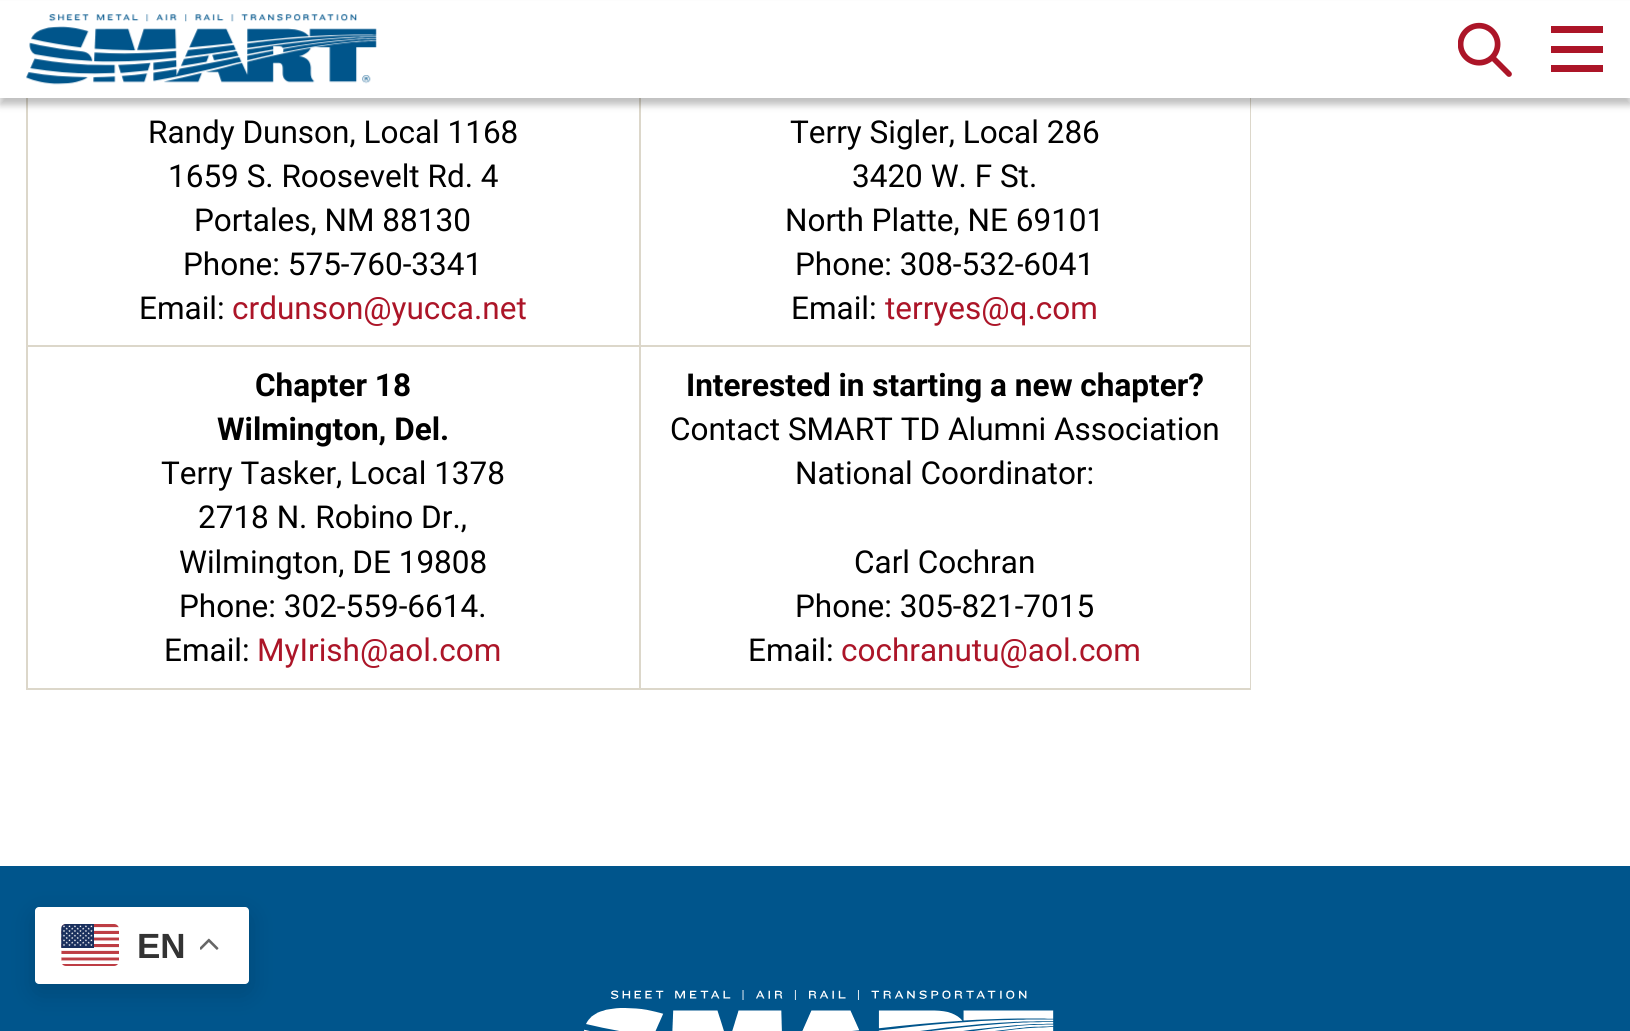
#include <cairo/cairo.h>
#include <math.h>
#include <stddef.h>

static cairo_t *cr;

static void use_color(int r, int g, int b) {
  cairo_set_source_rgb(cr, r / 255.0, g / 255.0, b / 255.0);
}

static void text(double x, double y, const char *s, const char *family, double size, int italic, int bold, int r, int g, int b) {
  cairo_select_font_face(cr, family, italic ? CAIRO_FONT_SLANT_ITALIC : CAIRO_FONT_SLANT_NORMAL,
    bold ? CAIRO_FONT_WEIGHT_BOLD : CAIRO_FONT_WEIGHT_NORMAL);
  cairo_set_font_size(cr, size);
  use_color(r, g, b);
  cairo_move_to(cr, x, y);
  cairo_show_text(cr, s);
}

static void box(double x, double y, double w, double h, int r, int g, int b) {
  use_color(r, g, b);
  cairo_rectangle(cr, x, y, w, h);
  cairo_fill(cr);
}

static void round_rect(double x, double y, double w, double h, double r) {
  cairo_new_sub_path(cr);
  cairo_arc(cr, x + w - r, y + h - r, r, 0, M_PI / 2);
  cairo_arc(cr, x + r, y + h - r, r, M_PI / 2, M_PI);
  cairo_arc(cr, x + r, y + r, r, M_PI, 1.5 * M_PI);
  cairo_arc(cr, x + w - r, y + r, r, 1.5 * M_PI, 2 * M_PI);
  cairo_close_path(cr);
}

static void shadow(double x, double y, double w, double h, double r, double blur, double alpha) {
  cairo_push_group_with_content(cr, CAIRO_CONTENT_ALPHA);
  cairo_set_operator(cr, CAIRO_OPERATOR_SOURCE);
  for (int i = 15; i >= -15 && fmin(w, h) + blur * i / 3 > 0; i -= 2) {
    double e = blur * i / 6;
    cairo_set_source_rgba(cr, 0, 0, 0, alpha * erfc((i - 1) / 8.5) / 2);
    round_rect(x - e, y - e, w + 2 * e, h + 2 * e, fmax(0, fmin(r + e + blur * .6, fmin(w, h) / 2 + e)));
    cairo_fill(cr);
  }
  cairo_pattern_t *soft = cairo_pop_group(cr);
  cairo_mask(cr, soft);
  cairo_pattern_destroy(soft);
}

static void picture(const char *path, double x, double y, double w, double h) {
  cairo_surface_t *image = cairo_image_surface_create_from_png(path);
  cairo_save(cr);
  cairo_set_source_surface(cr, image, x, y);
  cairo_rectangle(cr, x, y, w, h);
  cairo_fill(cr);
  cairo_restore(cr);
  cairo_surface_destroy(image);
}

static void draw(void) {
  use_color(255, 255, 255);
  cairo_paint(cr);
  box(1250, 98, 1, 592, 220, 215, 202);
  box(26, 688, 1225, 2, 220, 215, 202);
  box(26, 98, 2, 592, 220, 215, 202);
  box(639, 345, 611, 2, 220, 215, 202);
  box(639, 345, 2, 343, 220, 215, 202);
  box(28, 345, 613, 2, 220, 215, 202);
  box(639, 98, 2, 249, 220, 215, 202);
  use_color(0, 0, 0);
  shadow(0, 7, 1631, 98, 0, 3.5, 0.25);
  box(0, 1, 1630, 97, 255, 255, 255);
  picture("img_01.png", 26, 14, 351, 71);
  picture("img_02.png", 1458, 22, 54, 55);
  box(1551, 46, 52, 7, 172, 21, 40);
  box(1551, 26, 52, 7, 172, 21, 40);
  box(1551, 65, 52, 7, 172, 21, 40);
  box(0, 866, 1630, 165, 0, 85, 140);
  picture("img_03.png", 584, 990, 470, 41);
  use_color(0, 0, 0);
  shadow(35, 915, 214, 77, 4, 13, 0.15);
  use_color(255, 255, 255);
  round_rect(35, 907, 214, 77, 4);
  cairo_fill(cr);
  picture("img_04.png", 61, 924, 58, 42);
  picture("img_05.png", 200, 938, 19, 12);
  text(148, 143, "Randy Dunson, Local 1168", "Roboto", 31.5, 0, 0, 0, 0, 0);
  text(168, 187, "1659 S. Roosevelt Rd. 4", "Roboto", 31.5, 0, 0, 0, 0, 0);
  text(194, 231, "Portales, NM 88130", "Roboto", 31.5, 0, 0, 0, 0, 0);
  text(183, 275, "Phone: 575-760-3341", "Roboto", 31.5, 0, 0, 0, 0, 0);
  text(139, 319, "Email:", "Roboto", 31.5, 0, 0, 0, 0, 0);
  text(232, 319, "crdunson@yucca.net", "Roboto", 31.5, 0, 0, 172, 21, 40);
  text(790, 143, "Terry Sigler, Local 286", "Roboto", 31.5, 0, 0, 0, 0, 0);
  text(852, 187, "3420 W. F St.", "Roboto", 31.5, 0, 0, 0, 0, 0);
  text(785, 231, "North Platte, NE 69101", "Roboto", 31.5, 0, 0, 0, 0, 0);
  text(795, 275, "Phone: 308-532-6041", "Roboto", 31.5, 0, 0, 0, 0, 0);
  text(791, 319, "Email:", "Roboto", 31.5, 0, 0, 0, 0, 0);
  text(885, 319, "terryes@q.com", "Roboto", 31.5, 0, 0, 172, 21, 40);
  text(255, 396, "Chapter 18", "Roboto", 31.5, 0, 1, 0, 0, 0);
  text(217, 440, "Wilmington, Del.", "Roboto", 31.5, 0, 1, 0, 0, 0);
  text(161, 484, "Terry Tasker, Local 1378", "Roboto", 31.5, 0, 0, 0, 0, 0);
  text(198, 528, "2718 N. Robino Dr.,", "Roboto", 31.5, 0, 0, 0, 0, 0);
  text(179, 573, "Wilmington, DE 19808", "Roboto", 31.5, 0, 0, 0, 0, 0);
  text(179, 617, "Phone: 302-559-6614.", "Roboto", 31.5, 0, 0, 0, 0, 0);
  text(164, 661, "Email:", "Roboto", 31.5, 0, 0, 0, 0, 0);
  text(257, 661, "MyIrish@aol.com", "Roboto", 31.5, 0, 0, 172, 21, 40);
  text(686, 396, "Interested in starting a new chapter?", "Roboto", 31.5, 0, 1, 0, 0, 0);
  text(670, 440, "Contact SMART TD Alumni Association", "Roboto", 31.5, 0, 0, 0, 0, 0);
  text(795, 484, "National Coordinator:", "Roboto", 31.5, 0, 0, 0, 0, 0);
  text(854, 573, "Carl Cochran", "Roboto", 31.5, 0, 0, 0, 0, 0);
  text(795, 617, "Phone: 305-821-7015", "Roboto", 31.5, 0, 0, 0, 0, 0);
  text(748, 661, "Email:", "Roboto", 31.5, 0, 0, 0, 0, 0);
  text(841, 661, "cochranutu@aol.com", "Roboto", 31.5, 0, 0, 172, 21, 40);
  text(137, 958, "EN", "Liberation Sans", 35, 0, 1, 51, 51, 51);
}

int main(void) {
  cairo_surface_t *surface = cairo_image_surface_create(CAIRO_FORMAT_RGB24, 1630, 1031);
  cr = cairo_create(surface);
  cairo_font_options_t *options = cairo_font_options_create();
  cairo_font_options_set_hint_metrics(options, CAIRO_HINT_METRICS_OFF);
  cairo_font_options_set_hint_style(options, CAIRO_HINT_STYLE_NONE);
  cairo_set_font_options(cr, options);
  cairo_set_miter_limit(cr, 4);
  draw();
  cairo_surface_write_to_png(surface, "out.png");
  cairo_font_options_destroy(options);
  cairo_destroy(cr);
  cairo_surface_destroy(surface);
  return 0;
}
